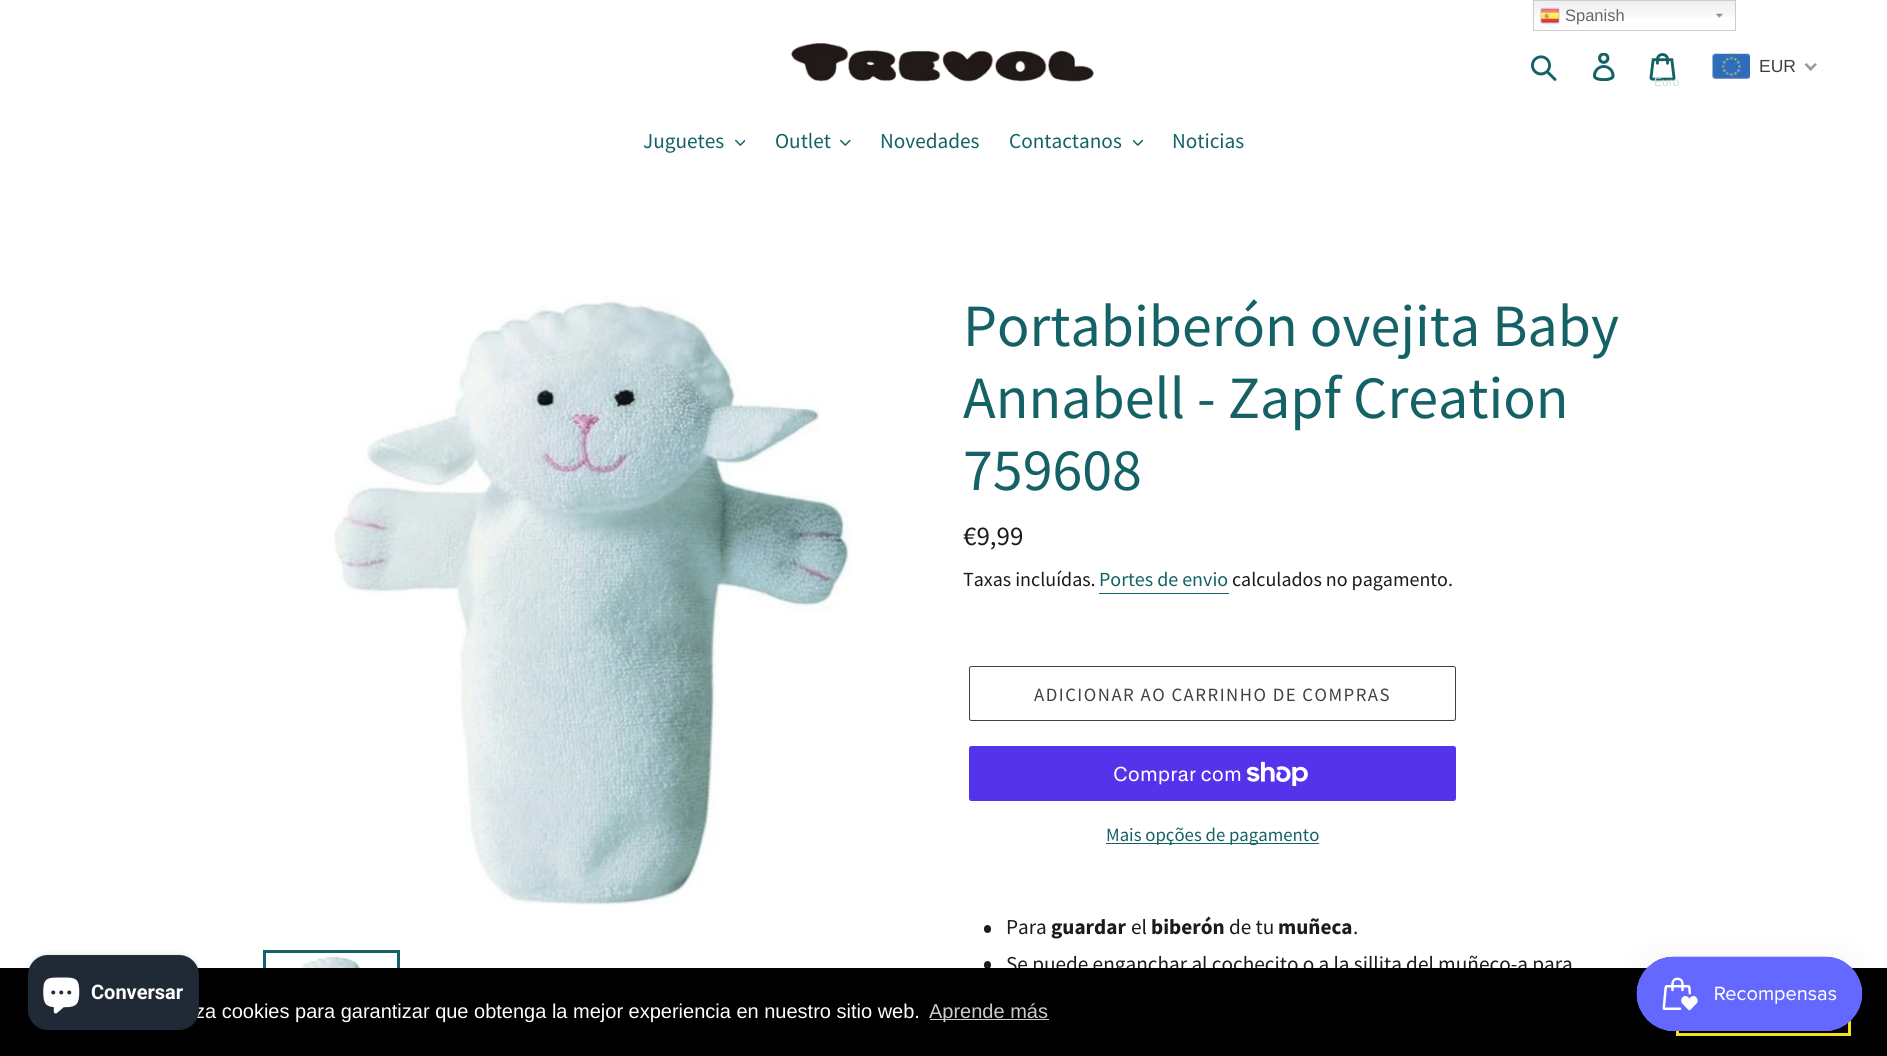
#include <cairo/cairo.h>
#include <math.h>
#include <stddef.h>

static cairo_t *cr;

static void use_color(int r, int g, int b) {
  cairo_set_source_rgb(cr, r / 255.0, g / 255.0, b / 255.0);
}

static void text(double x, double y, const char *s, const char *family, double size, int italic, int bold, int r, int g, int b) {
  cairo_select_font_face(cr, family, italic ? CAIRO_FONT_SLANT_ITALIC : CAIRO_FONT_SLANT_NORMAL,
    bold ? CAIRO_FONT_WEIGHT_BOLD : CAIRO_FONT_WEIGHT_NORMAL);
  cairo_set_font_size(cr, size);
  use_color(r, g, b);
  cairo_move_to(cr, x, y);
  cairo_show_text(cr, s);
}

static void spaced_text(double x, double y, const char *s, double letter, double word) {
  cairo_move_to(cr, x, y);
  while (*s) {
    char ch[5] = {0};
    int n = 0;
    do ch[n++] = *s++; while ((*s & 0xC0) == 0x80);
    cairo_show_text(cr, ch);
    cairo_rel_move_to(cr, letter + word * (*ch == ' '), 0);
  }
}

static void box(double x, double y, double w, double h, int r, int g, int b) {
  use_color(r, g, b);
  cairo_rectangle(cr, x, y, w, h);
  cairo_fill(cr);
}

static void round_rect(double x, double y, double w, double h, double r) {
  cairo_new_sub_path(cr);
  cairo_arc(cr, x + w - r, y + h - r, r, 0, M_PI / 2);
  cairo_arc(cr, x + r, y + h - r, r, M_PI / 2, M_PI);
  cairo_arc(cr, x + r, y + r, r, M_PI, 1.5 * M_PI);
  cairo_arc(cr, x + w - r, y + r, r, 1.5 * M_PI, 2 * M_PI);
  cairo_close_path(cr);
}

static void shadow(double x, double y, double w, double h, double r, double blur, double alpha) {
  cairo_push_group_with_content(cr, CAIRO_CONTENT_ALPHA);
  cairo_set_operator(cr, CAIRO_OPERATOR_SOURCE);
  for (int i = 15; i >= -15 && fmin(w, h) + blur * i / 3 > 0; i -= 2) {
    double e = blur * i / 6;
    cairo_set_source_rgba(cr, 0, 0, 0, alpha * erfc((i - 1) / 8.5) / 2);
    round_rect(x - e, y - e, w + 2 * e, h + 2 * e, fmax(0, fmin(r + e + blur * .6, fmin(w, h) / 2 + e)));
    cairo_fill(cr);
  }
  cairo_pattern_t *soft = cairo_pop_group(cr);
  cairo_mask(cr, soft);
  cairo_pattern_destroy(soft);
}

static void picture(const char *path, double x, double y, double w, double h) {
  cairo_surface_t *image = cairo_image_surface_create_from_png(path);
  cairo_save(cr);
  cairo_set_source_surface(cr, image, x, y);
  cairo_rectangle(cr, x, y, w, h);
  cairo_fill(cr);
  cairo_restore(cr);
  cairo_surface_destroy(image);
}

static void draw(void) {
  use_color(255, 255, 255);
  cairo_paint(cr);
  picture("img_01.png", 1532, 0, 203, 17);
  picture("img_02.png", 1716, 13, 7, 5);
  cairo_rectangle(cr, 1533.5, 0.5, 202, 30);
  use_color(204, 204, 204);
  cairo_set_line_width(cr, 1);
  cairo_stroke(cr);
  picture("img_03.png", 1540, 7, 20, 18);
  picture("img_04.png", 791, 43, 303, 39);
  picture("img_05.png", 1531, 55, 26, 26);
  picture("img_06.png", 1592, 53, 23, 28);
  picture("img_07.png", 1649, 53, 27, 28);
  picture("img_08.png", 1712, 53, 38, 26);
  use_color(153, 153, 153);
  cairo_new_path(cr);
  cairo_move_to(cr, 1815, 63);
  cairo_line_to(cr, 1817, 64.5);
  cairo_line_to(cr, 1810.5, 71);
  cairo_line_to(cr, 1809, 69);
  cairo_close_path(cr);
  cairo_fill(cr);
  cairo_new_path(cr);
  cairo_move_to(cr, 1806.5, 63);
  cairo_line_to(cr, 1812.5, 69);
  cairo_line_to(cr, 1810.5, 71);
  cairo_line_to(cr, 1804.5, 64.5);
  cairo_close_path(cr);
  cairo_fill(cr);
  picture("img_09.png", 735, 139, 10, 7);
  picture("img_10.png", 840, 139, 11, 7);
  picture("img_11.png", 1133, 139, 10, 7);
  picture("img_13.png", 333, 295, 518, 610);
  cairo_rectangle(cr, 264.5, 951.5, 134, 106);
  use_color(20, 98, 102);
  cairo_set_line_width(cr, 3);
  cairo_stroke(cr);
  picture("img_14.png", 269, 955, 124, 13);
  box(1099, 593, 130, 1, 20, 98, 102);
  round_rect(969.5, 666.5, 486, 54, 2);
  use_color(61, 66, 70);
  cairo_set_line_width(cr, 1);
  cairo_stroke(cr);
  use_color(84, 51, 235);
  round_rect(969, 746, 487, 55, 2.5);
  cairo_fill(cr);
  picture("img_15.png", 1246, 761, 62, 25);
  box(1106, 843, 213, 1, 20, 98, 102);
  use_color(26, 27, 29);
  round_rect(984, 925, 7, 8, 3.5);
  cairo_fill(cr);
  round_rect(984, 961, 7, 8, 3.5);
  cairo_fill(cr);
  text(1565, 21, "Spanish", "Liberation Sans", 16.5, 0, 0, 102, 102, 102);
  text(1759, 72, "EUR", "Liberation Sans", 17.5, 0, 0, 64, 63, 63);
  text(1654, 86, "Euro", "Liberation Sans", 12, 0, 0, 207, 223, 224);
  text(643, 148, "Juguetes", "Source Sans Pro", 21.25, 0, 0, 20, 98, 102);
  text(775, 148, "Outlet", "Source Sans Pro", 21.25, 0, 0, 20, 98, 102);
  text(880, 148, "Novedades", "Source Sans Pro", 21.25, 0, 0, 20, 98, 102);
  text(1009, 148, "Contactanos", "Source Sans Pro", 21.25, 0, 0, 20, 98, 102);
  text(1172, 148, "Noticias", "Source Sans Pro", 21.25, 0, 0, 20, 98, 102);
  text(963, 346, "Portabiberón ovejita Baby", "Source Sans Pro", 60, 0, 0, 20, 98, 102);
  text(963, 418, "Annabell - Zapf Creation", "Source Sans Pro", 60, 0, 0, 20, 98, 102);
  text(963, 490, "759608", "Source Sans Pro", 60, 0, 0, 20, 98, 102);
  text(963, 545, "€9,99", "Source Sans Pro", 27, 0, 0, 26, 27, 29);
  text(963, 586, "Taxas incluídas.", "Source Sans Pro", 20, 0, 0, 26, 27, 29);
  text(1099, 586, "Portes de envio", "Source Sans Pro", 20, 0, 0, 20, 98, 102);
  text(1232, 586, "calculados no pagamento.", "Source Sans Pro", 20, 0, 0, 26, 27, 29);
  cairo_set_font_size(cr, 18.75);
  use_color(61, 66, 70);
  spaced_text(1034, 701, "ADICIONAR AO CARRINHO DE COMPRAS", 1.5, 0);
  text(1113, 781, "Comprar com", "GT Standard", 20, 0, 0, 255, 255, 255);
  text(1106, 841, "Mais opções de pagamento", "Source Sans Pro", 18.75, 0, 0, 20, 98, 102);
  text(1006, 934, "Para", "Source Sans Pro", 21.25, 0, 0, 26, 27, 29);
  text(1051, 934, "guardar", "Source Sans Pro", 21.25, 0, 1, 26, 27, 29);
  text(1131, 934, "el", "Source Sans Pro", 21.25, 0, 0, 26, 27, 29);
  text(1151, 934, "biberón", "Source Sans Pro", 21.25, 0, 1, 26, 27, 29);
  text(1229, 934, "de tu", "Source Sans Pro", 21.25, 0, 0, 26, 27, 29);
  text(1278, 934, "muñeca", "Source Sans Pro", 21.25, 0, 1, 26, 27, 29);
  text(1353, 934, ".", "Source Sans Pro", 21.25, 0, 0, 26, 27, 29);
  text(1006, 971, "Se puede enganchar al cochecito o a la sillita del muñeco-a para", "Source Sans Pro", 21.25, 0, 0, 26, 27, 29);
  box(0, 968, 1887, 88, 0, 0, 0);
  use_color(0, 0, 0);
  shadow(28, 955, 171, 75, 20, 3, 0.15);
  text(195, 1018, "za cookies para garantizar que obtenga la mejor experiencia en nuestro sitio web.", "Liberation Sans", 20, 0, 0, 255, 255, 255);
  use_color(32, 42, 54);
  round_rect(28, 955, 171, 75, 20);
  cairo_fill(cr);
  text(91, 999, "Conversar", "Roboto", 20, 0, 1, 255, 255, 255);
  picture("img_12.png", 43, 977, 37, 37);
  box(930, 1019, 119, 1, 204, 204, 204);
  text(929, 1018, "Aprende más", "Liberation Sans", 20, 0, 0, 204, 204, 204);
  cairo_rectangle(cr, 1677.5, 989.5, 172, 45);
  use_color(248, 231, 28);
  cairo_set_line_width(cr, 3);
  cairo_stroke(cr);
  use_color(0, 0, 0);
  shadow(1636, 956, 227, 75, 37.5, 15.5, 0.05);
  picture("img_16.png", 1636, 956, 227, 75);
}

int main(void) {
  cairo_surface_t *surface = cairo_image_surface_create(CAIRO_FORMAT_RGB24, 1887, 1056);
  cr = cairo_create(surface);
  cairo_font_options_t *options = cairo_font_options_create();
  cairo_font_options_set_hint_metrics(options, CAIRO_HINT_METRICS_OFF);
  cairo_font_options_set_hint_style(options, CAIRO_HINT_STYLE_NONE);
  cairo_set_font_options(cr, options);
  cairo_set_miter_limit(cr, 4);
  draw();
  cairo_surface_write_to_png(surface, "out.png");
  cairo_font_options_destroy(options);
  cairo_destroy(cr);
  cairo_surface_destroy(surface);
  return 0;
}
